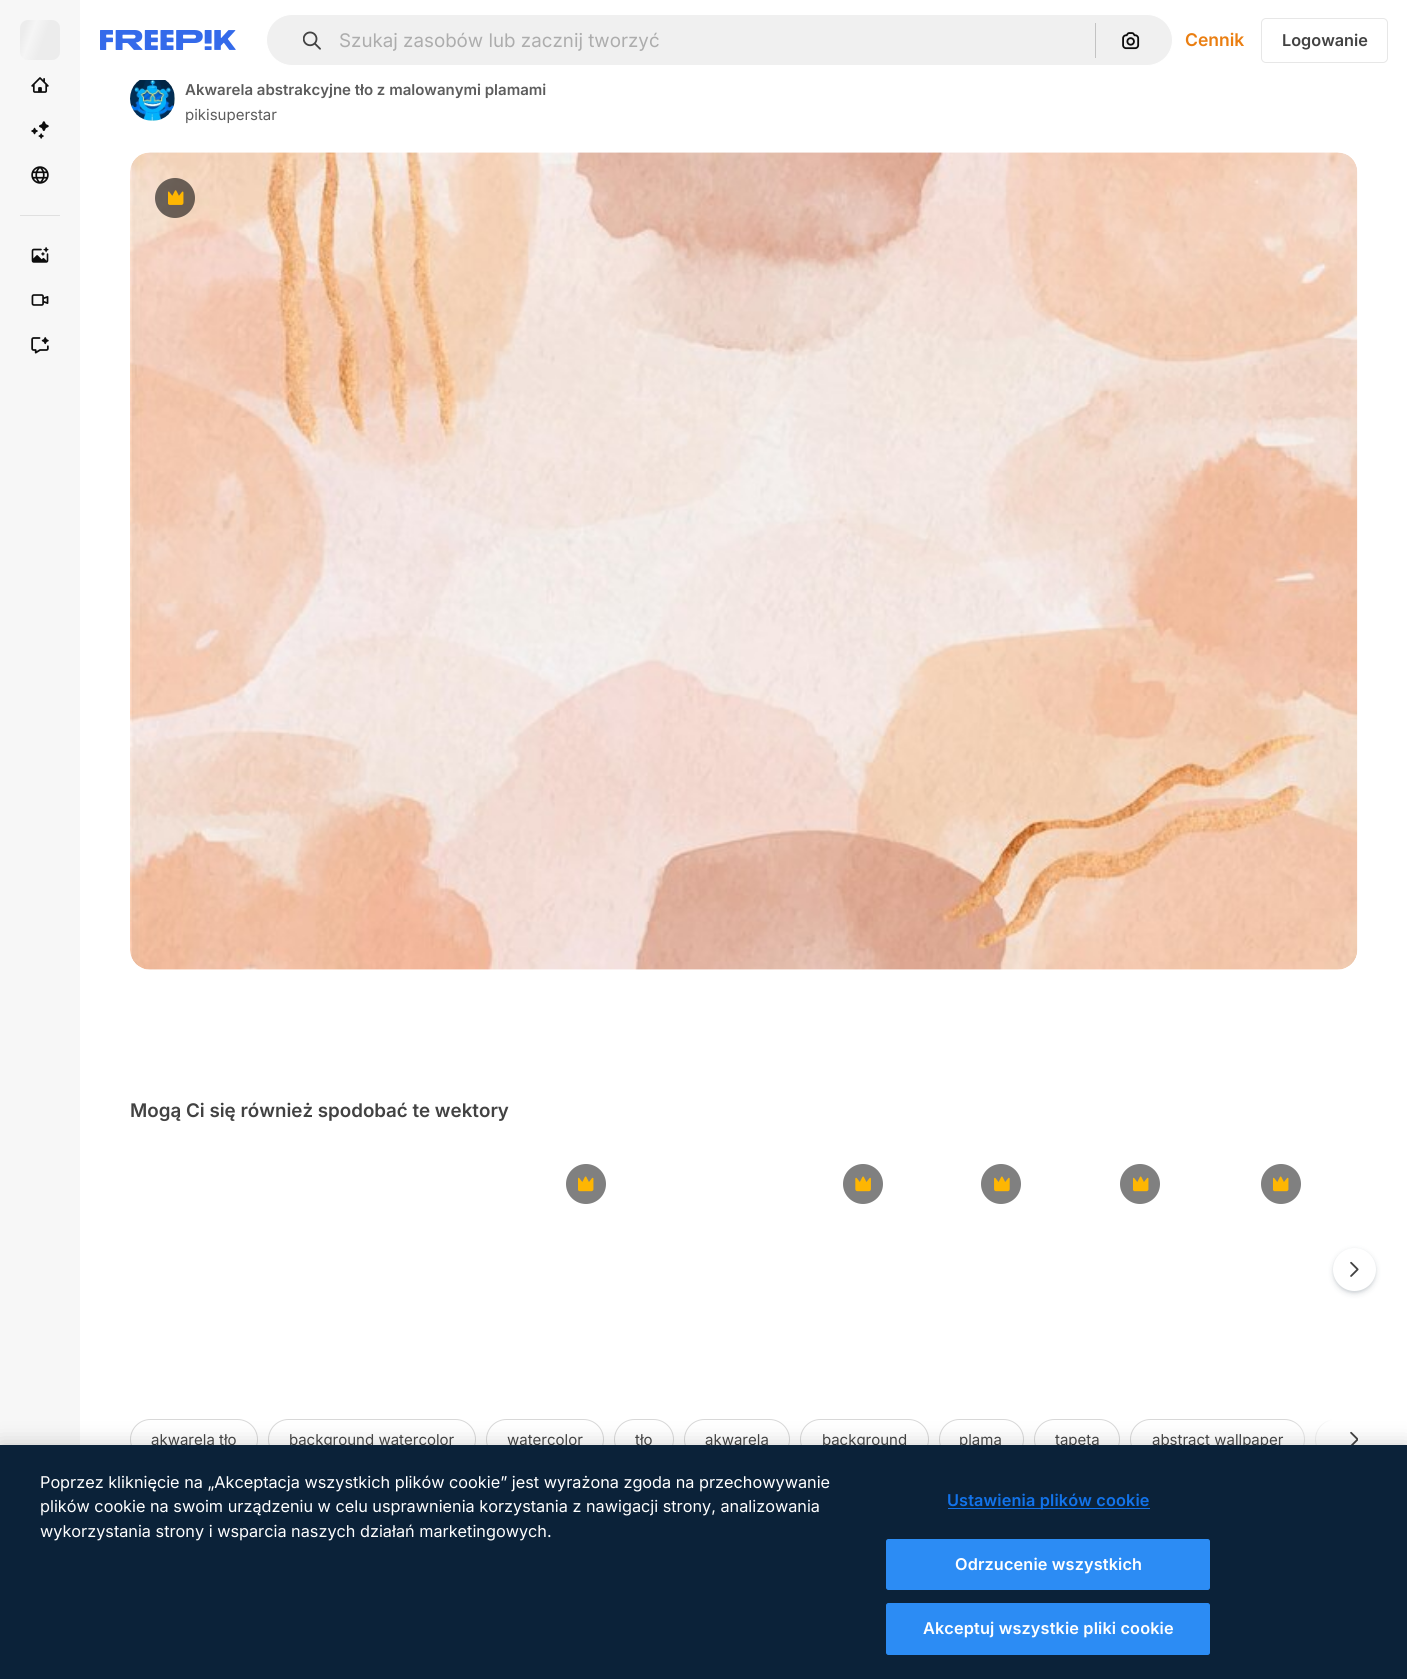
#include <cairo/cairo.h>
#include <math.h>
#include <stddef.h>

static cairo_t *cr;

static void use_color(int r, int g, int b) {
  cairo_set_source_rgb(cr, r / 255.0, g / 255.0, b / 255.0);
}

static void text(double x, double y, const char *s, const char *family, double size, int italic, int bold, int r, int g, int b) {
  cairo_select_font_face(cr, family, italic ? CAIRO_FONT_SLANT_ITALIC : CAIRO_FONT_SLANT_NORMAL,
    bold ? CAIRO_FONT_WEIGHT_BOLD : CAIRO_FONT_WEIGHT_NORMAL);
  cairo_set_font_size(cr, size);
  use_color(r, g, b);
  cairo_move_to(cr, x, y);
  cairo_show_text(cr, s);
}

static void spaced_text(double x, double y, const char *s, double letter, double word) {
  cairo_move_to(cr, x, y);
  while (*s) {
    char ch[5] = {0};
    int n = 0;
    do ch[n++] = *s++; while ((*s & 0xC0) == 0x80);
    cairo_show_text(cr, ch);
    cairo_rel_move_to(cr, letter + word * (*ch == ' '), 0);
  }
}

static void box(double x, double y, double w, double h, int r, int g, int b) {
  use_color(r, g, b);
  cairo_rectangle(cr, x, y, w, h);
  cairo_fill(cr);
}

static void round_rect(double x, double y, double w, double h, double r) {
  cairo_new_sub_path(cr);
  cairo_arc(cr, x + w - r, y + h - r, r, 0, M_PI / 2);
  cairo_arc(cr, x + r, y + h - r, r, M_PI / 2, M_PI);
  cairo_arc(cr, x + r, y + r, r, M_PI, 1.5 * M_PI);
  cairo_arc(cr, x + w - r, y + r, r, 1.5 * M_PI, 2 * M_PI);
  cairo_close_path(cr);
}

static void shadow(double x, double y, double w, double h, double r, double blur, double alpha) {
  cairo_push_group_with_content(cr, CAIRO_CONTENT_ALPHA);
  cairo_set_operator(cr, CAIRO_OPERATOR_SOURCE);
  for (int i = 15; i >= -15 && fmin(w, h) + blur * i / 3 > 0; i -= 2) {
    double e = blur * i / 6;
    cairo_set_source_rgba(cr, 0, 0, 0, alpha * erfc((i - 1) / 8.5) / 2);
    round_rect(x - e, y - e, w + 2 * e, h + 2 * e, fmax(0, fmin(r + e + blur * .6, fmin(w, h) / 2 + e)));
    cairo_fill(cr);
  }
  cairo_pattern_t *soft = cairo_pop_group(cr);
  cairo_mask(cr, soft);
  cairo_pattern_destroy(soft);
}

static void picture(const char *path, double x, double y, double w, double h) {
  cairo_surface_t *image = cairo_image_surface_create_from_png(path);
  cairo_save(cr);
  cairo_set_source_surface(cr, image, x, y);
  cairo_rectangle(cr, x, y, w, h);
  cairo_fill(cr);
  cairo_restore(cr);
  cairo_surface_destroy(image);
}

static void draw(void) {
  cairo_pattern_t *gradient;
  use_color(255, 255, 255);
  cairo_paint(cr);
  box(0, 0, 80, 1445, 247, 247, 247);
  gradient = cairo_pattern_create_linear(18, 25, 102, 55);
  cairo_pattern_add_color_stop_rgba(gradient, 0.08, 0.925, 0.925, 0.925, 1);
  cairo_pattern_add_color_stop_rgba(gradient, 0.18, 0.961, 0.961, 0.961, 1);
  cairo_pattern_add_color_stop_rgba(gradient, 0.33, 0.925, 0.925, 0.925, 1);
  cairo_set_source(cr, gradient);
  cairo_pattern_destroy(gradient);
  round_rect(20, 20, 40, 40, 8);
  cairo_fill(cr);
  picture("img_01.png", 31, 77, 18, 16);
  picture("img_02.png", 31, 121, 18, 18);
  picture("img_03.png", 31, 166, 18, 18);
  box(20, 215, 40, 1, 224, 224, 224);
  picture("img_04.png", 31, 247, 18, 16);
  picture("img_05.png", 31, 294, 18, 12);
  picture("img_06.png", 31, 337, 18, 17);
  picture("img_07.png", 100, 30, 136, 20);
  use_color(240, 240, 240);
  round_rect(266.5, 14.5, 906, 51, 25.5);
  cairo_fill_preserve(cr);
  use_color(255, 255, 255);
  cairo_set_line_width(cr, 1);
  cairo_stroke(cr);
  picture("img_08.png", 303, 31, 18, 19);
  box(1095, 23, 1, 35, 195, 195, 195);
  picture("img_09.png", 1122, 32, 18, 18);
  round_rect(1261.5, 18.5, 126, 44, 4.5);
  use_color(231, 231, 231);
  cairo_stroke(cr);
  picture("img_10.png", 130, 80, 45, 41);
  picture("img_11.png", 130, 152, 1228, 818);
  cairo_set_source_rgba(cr, 0.051, 0.051, 0.051, 0.6);
  cairo_arc(cr, 175, 198, 20, 0, 2 * M_PI);
  cairo_fill(cr);
  picture("img_12.png", 168, 190, 16, 15);
  use_color(128, 128, 128);
  cairo_arc(cr, 586, 1184, 20, 0, 2 * M_PI);
  cairo_fill(cr);
  picture("img_13.png", 578, 1176, 16, 16);
  cairo_arc(cr, 863, 1184, 20, 0, 2 * M_PI);
  cairo_fill(cr);
  picture("img_14.png", 855, 1176, 16, 16);
  cairo_arc(cr, 1001, 1184, 20, 0, 2 * M_PI);
  cairo_fill(cr);
  picture("img_15.png", 994, 1176, 16, 16);
  cairo_arc(cr, 1140, 1184, 20, 0, 2 * M_PI);
  cairo_fill(cr);
  picture("img_13.png", 1133, 1176, 16, 16);
  cairo_arc(cr, 1281, 1184, 20, 0, 2 * M_PI);
  cairo_fill(cr);
  picture("img_13.png", 1273, 1176, 16, 16);
  use_color(55, 73, 87);
  shadow(1333, 1250, 43, 44, 21.5, 3, 0.15);
  shadow(1333, 1249, 43, 44, 21.5, 1, 0.1);
  use_color(255, 255, 255);
  cairo_arc(cr, 1354.5, 1269.5, 21.5, 0, 2 * M_PI);
  cairo_fill(cr);
  picture("img_16.png", 1350, 1261, 9, 16);
  round_rect(130.5, 1419.5, 127, 40, 20);
  use_color(216, 216, 216);
  cairo_stroke(cr);
  round_rect(268.5, 1419.5, 207, 40, 20);
  cairo_stroke(cr);
  round_rect(486.5, 1419.5, 117, 40, 20);
  cairo_stroke(cr);
  round_rect(614.5, 1419.5, 59, 40, 20);
  cairo_stroke(cr);
  round_rect(684.5, 1419.5, 105, 40, 20);
  cairo_stroke(cr);
  round_rect(800.5, 1419.5, 128, 40, 20);
  cairo_stroke(cr);
  round_rect(939.5, 1419.5, 84, 40, 20);
  cairo_stroke(cr);
  round_rect(1034.5, 1419.5, 85, 40, 20);
  cairo_stroke(cr);
  round_rect(1130.5, 1419.5, 174, 40, 20);
  cairo_stroke(cr);
  cairo_save(cr);
  cairo_rectangle(cr, 130, 1419, 1228, 41);
  cairo_clip(cr);
  round_rect(1315.5, 1419.5, 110, 40, 20);
  cairo_stroke(cr);
  cairo_restore(cr);
  box(1333, 1419, 25, 2, 255, 255, 255);
  gradient = cairo_pattern_create_linear(1333, 1439, 1289, 1439);
  cairo_pattern_add_color_stop_rgba(gradient, 0, 1, 1, 1, 1);
  cairo_pattern_add_color_stop_rgba(gradient, 1, 1, 1, 1, 0);
  cairo_set_source(cr, gradient);
  cairo_pattern_destroy(gradient);
  cairo_rectangle(cr, 1293, 1419, 40, 26);
  cairo_fill(cr);
  picture("img_17.png", 1350, 1431, 8, 14);
  use_color(0, 0, 0);
  shadow(0, 1445, 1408, 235, 0, 11, 0.2);
  text(339, 47, "Szukaj zasobów lub zacznij tworzyć", "Inter", 18.75, 0, 0, 173, 173, 173);
  text(1185, 46, "Cennik", "Inter SemiBold", 17.5, 0, 0, 234, 126, 17);
  text(1282, 46, "Logowanie", "Inter SemiBold", 16.25, 0, 0, 66, 66, 66);
  text(185, 95, "Akwarela abstrakcyjne tło z malowanymi plamami", "Inter SemiBold", 15, 0, 0, 92, 92, 92);
  text(185, 120, "pikisuperstar", "Inter", 15, 0, 0, 92, 92, 92);
  text(130, 1117, "Mogą Ci się również spodobać te wektory", "Inter SemiBold", 18.75, 0, 0, 66, 66, 66);
  text(151, 1445, "akwarela tło", "Inter", 15, 0, 0, 66, 66, 66);
  text(289, 1445, "background watercolor", "Inter", 15, 0, 0, 66, 66, 66);
  text(507, 1445, "watercolor", "Inter", 15, 0, 0, 66, 66, 66);
  text(635, 1445, "tło", "Inter", 15, 0, 0, 66, 66, 66);
  text(705, 1445, "akwarela", "Inter", 15, 0, 0, 66, 66, 66);
  text(822, 1445, "background", "Inter", 15, 0, 0, 66, 66, 66);
  text(959, 1445, "plama", "Inter", 15, 0, 0, 66, 66, 66);
  text(1055, 1445, "tapeta", "Inter", 15, 0, 0, 66, 66, 66);
  text(1152, 1445, "abstract wallpaper", "Inter", 15, 0, 0, 66, 66, 66);
  box(0, 1445, 1407, 234, 11, 34, 57);
  text(40, 1488, "Poprzez kliknięcie na „Akceptacja wszystkich plików cookie” jest wyrażona zgoda na przechowywanie", "Inter", 16.25, 0, 0, 255, 255, 255);
  text(40, 1512, "plików cookie na swoim urządzeniu w celu usprawnienia korzystania z nawigacji strony, analizowania", "Inter", 16.25, 0, 0, 255, 255, 255);
  text(40, 1537, "wykorzystania strony i wsparcia naszych działań marketingowych.", "Inter", 16.25, 0, 0, 255, 255, 255);
  box(948, 1508, 202, 1, 18, 115, 235);
  cairo_select_font_face(cr, "Inter SemiBold", CAIRO_FONT_SLANT_NORMAL, CAIRO_FONT_WEIGHT_NORMAL);
  spaced_text(947, 1506, "Ustawienia plików cookie", 0.15, 0);
  use_color(44, 140, 244);
  round_rect(886.5, 1539.5, 323, 50, 2);
  cairo_fill_preserve(cr);
  cairo_stroke(cr);
  use_color(255, 255, 255);
  spaced_text(955, 1570, "Odrzucenie wszystkich", 0.15, 0);
  use_color(44, 140, 244);
  round_rect(886.5, 1603.5, 323, 51, 2);
  cairo_fill_preserve(cr);
  cairo_stroke(cr);
  use_color(255, 255, 255);
  spaced_text(923, 1634, "Akceptuj wszystkie pliki cookie", 0.15, 0);
}

int main(void) {
  cairo_surface_t *surface = cairo_image_surface_create(CAIRO_FORMAT_RGB24, 1407, 1679);
  cr = cairo_create(surface);
  cairo_font_options_t *options = cairo_font_options_create();
  cairo_font_options_set_hint_metrics(options, CAIRO_HINT_METRICS_OFF);
  cairo_font_options_set_hint_style(options, CAIRO_HINT_STYLE_NONE);
  cairo_set_font_options(cr, options);
  cairo_set_miter_limit(cr, 4);
  draw();
  cairo_surface_write_to_png(surface, "out.png");
  cairo_font_options_destroy(options);
  cairo_destroy(cr);
  cairo_surface_destroy(surface);
  return 0;
}
